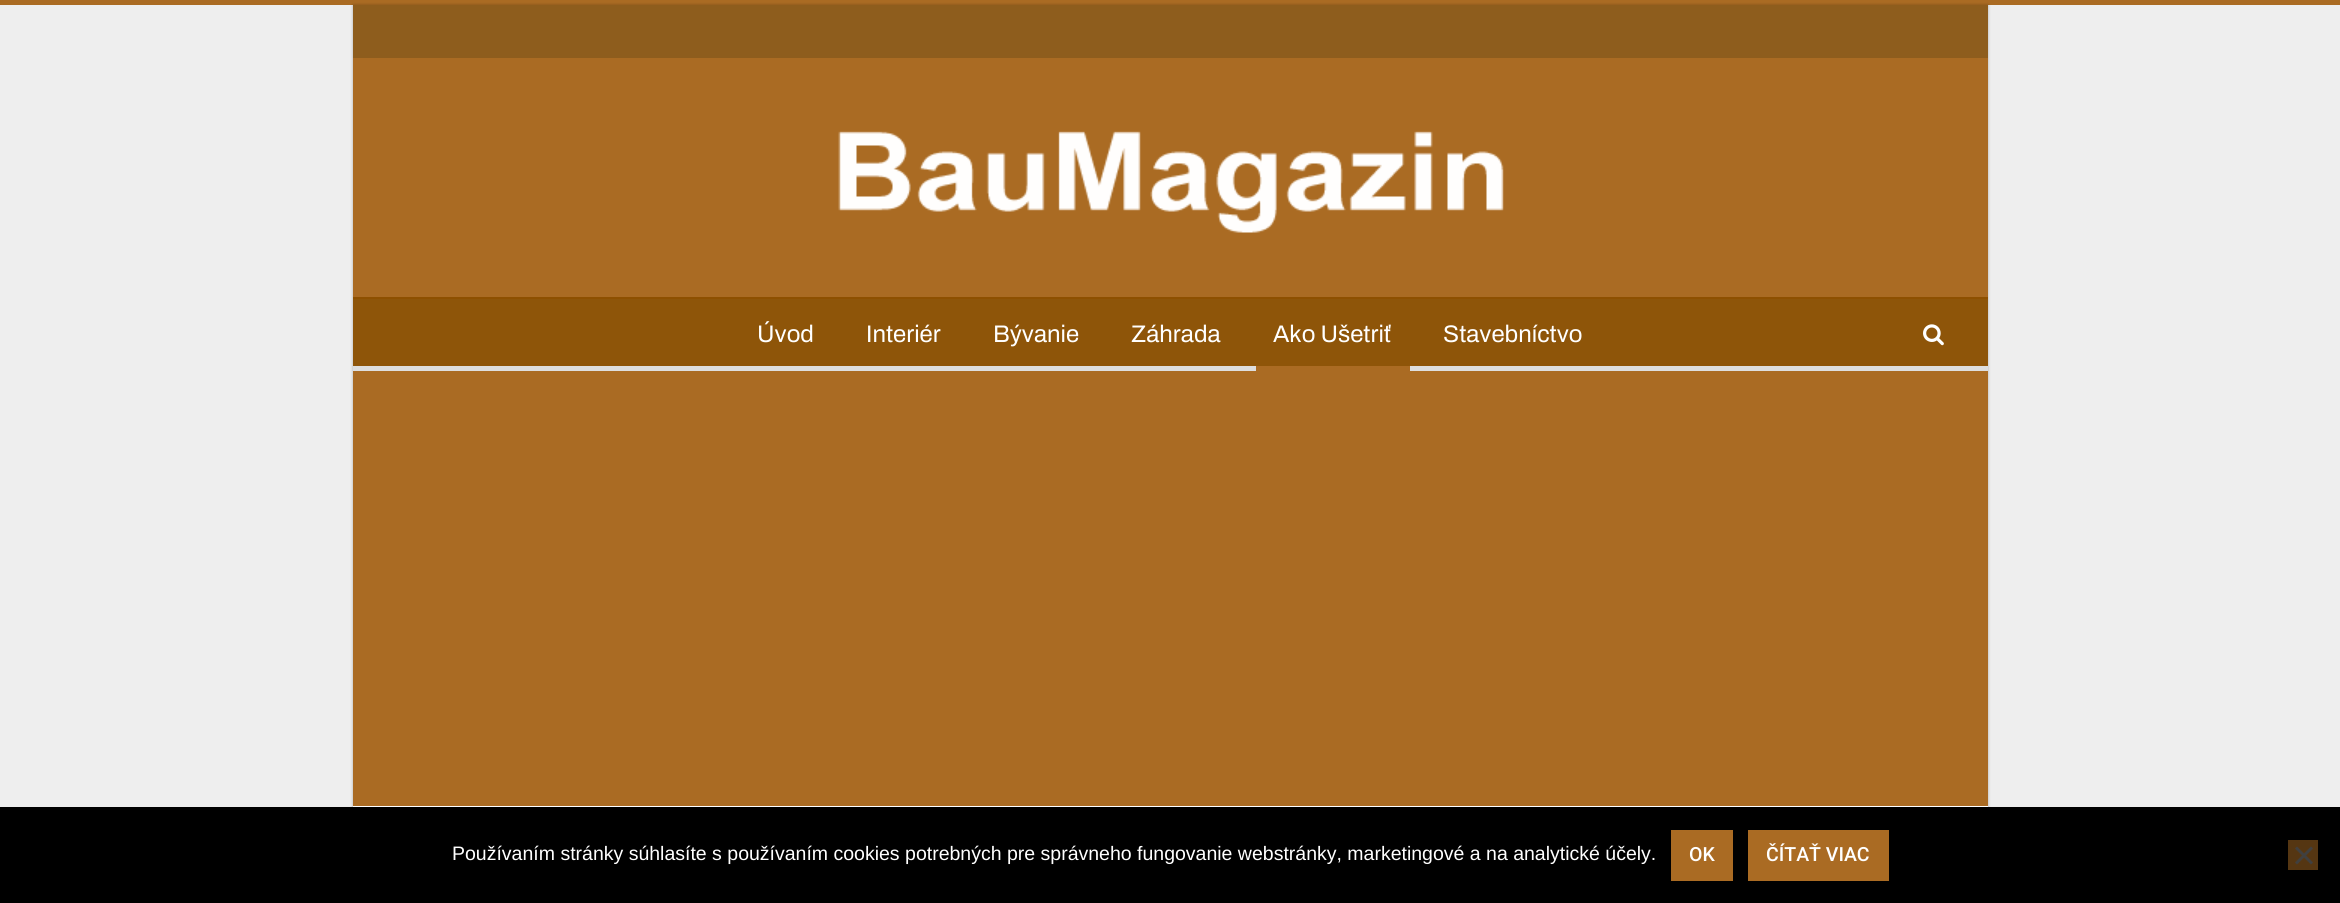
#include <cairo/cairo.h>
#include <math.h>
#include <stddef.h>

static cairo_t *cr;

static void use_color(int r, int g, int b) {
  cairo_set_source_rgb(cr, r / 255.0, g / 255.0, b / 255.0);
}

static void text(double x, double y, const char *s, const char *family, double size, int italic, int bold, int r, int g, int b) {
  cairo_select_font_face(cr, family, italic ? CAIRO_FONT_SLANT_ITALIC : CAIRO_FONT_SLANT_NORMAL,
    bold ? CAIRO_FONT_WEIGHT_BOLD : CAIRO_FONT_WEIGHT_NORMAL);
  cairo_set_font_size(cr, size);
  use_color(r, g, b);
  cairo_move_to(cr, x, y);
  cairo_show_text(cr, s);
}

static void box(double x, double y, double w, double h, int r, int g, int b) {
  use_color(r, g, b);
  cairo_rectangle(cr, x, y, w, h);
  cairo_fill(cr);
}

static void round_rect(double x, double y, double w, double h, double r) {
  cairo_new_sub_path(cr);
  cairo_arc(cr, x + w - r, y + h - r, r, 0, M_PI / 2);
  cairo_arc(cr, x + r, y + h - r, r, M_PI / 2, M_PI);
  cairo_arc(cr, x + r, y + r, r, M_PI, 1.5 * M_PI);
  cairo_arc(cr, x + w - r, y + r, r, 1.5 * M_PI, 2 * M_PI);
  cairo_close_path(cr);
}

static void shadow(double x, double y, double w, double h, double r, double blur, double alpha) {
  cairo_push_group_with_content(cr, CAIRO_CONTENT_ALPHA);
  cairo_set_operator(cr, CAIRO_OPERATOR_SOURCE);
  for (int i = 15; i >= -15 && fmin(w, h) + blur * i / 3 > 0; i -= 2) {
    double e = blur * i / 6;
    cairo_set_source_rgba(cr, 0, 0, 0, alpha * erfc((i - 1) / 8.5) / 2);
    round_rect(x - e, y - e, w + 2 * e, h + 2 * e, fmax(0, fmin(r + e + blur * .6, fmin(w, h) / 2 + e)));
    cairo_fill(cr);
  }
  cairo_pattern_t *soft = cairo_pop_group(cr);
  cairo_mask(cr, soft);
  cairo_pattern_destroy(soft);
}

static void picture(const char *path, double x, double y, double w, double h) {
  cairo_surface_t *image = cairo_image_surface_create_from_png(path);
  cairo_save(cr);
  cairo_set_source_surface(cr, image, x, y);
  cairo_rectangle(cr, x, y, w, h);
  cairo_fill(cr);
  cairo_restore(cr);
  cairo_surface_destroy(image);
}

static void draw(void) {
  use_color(238, 238, 238);
  cairo_paint(cr);
  box(0, 0, 2340, 5, 170, 107, 35);
  use_color(0, 0, 0);
  shadow(353, 5, 1635, 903, 0, 1.5, 0.27);
  box(353, 806, 1635, 1, 255, 255, 255);
  box(353, 58, 1635, 748, 170, 107, 35);
  box(353, 5, 1635, 53, 142, 93, 29);
  picture("img_01.png", 838, 131, 666, 102);
  box(353, 299, 1635, 67, 142, 85, 9);
  box(353, 297, 1635, 2, 142, 80, 0);
  box(353, 366, 1635, 5, 222, 222, 222);
  box(1256, 366, 154, 5, 170, 107, 35);
  picture("img_02.png", 1923, 324, 21, 22);
  box(0, 807, 2340, 96, 0, 0, 0);
  box(1671, 830, 62, 51, 170, 107, 35);
  box(1748, 830, 141, 51, 170, 107, 35);
  box(2288, 840, 30, 30, 85, 54, 18);
  use_color(64, 64, 64);
  cairo_new_path(cr);
  cairo_move_to(cr, 2311, 846.5);
  cairo_line_to(cr, 2313, 848.5);
  cairo_line_to(cr, 2297, 864.5);
  cairo_line_to(cr, 2295, 862.5);
  cairo_close_path(cr);
  cairo_fill(cr);
  cairo_new_path(cr);
  cairo_move_to(cr, 2295, 848.5);
  cairo_line_to(cr, 2297, 846.5);
  cairo_line_to(cr, 2313, 862.5);
  cairo_line_to(cr, 2311, 864.5);
  cairo_close_path(cr);
  cairo_fill(cr);
  text(757, 342, "Úvod", "Archivo", 24, 0, 0, 255, 255, 255);
  text(866, 342, "Interiér", "Archivo", 24, 0, 0, 255, 255, 255);
  text(993, 342, "Bývanie", "Archivo", 24, 0, 0, 255, 255, 255);
  text(1131, 342, "Záhrada", "Archivo", 24, 0, 0, 255, 255, 255);
  text(1273, 342, "Ako Ušetriť", "Archivo", 24, 0, 0, 255, 255, 255);
  text(1443, 342, "Stavebníctvo", "Archivo", 24, 0, 0, 255, 255, 255);
  text(452, 860, "Používaním stránky súhlasíte s používaním cookies potrebných pre správneho fungovanie webstránky, marketingové a na analytické účely.", "Liberation Sans", 19.5, 0, 0, 255, 255, 255);
  text(1689, 861, "OK", "Roboto Medium", 19.5, 0, 0, 255, 255, 255);
  text(1766, 861, "ČÍTAŤ VIAC", "Roboto Medium", 19.5, 0, 0, 255, 255, 255);
}

int main(void) {
  cairo_surface_t *surface = cairo_image_surface_create(CAIRO_FORMAT_RGB24, 2340, 903);
  cr = cairo_create(surface);
  cairo_font_options_t *options = cairo_font_options_create();
  cairo_font_options_set_hint_metrics(options, CAIRO_HINT_METRICS_OFF);
  cairo_font_options_set_hint_style(options, CAIRO_HINT_STYLE_NONE);
  cairo_set_font_options(cr, options);
  cairo_set_miter_limit(cr, 4);
  draw();
  cairo_surface_write_to_png(surface, "out.png");
  cairo_font_options_destroy(options);
  cairo_destroy(cr);
  cairo_surface_destroy(surface);
  return 0;
}
